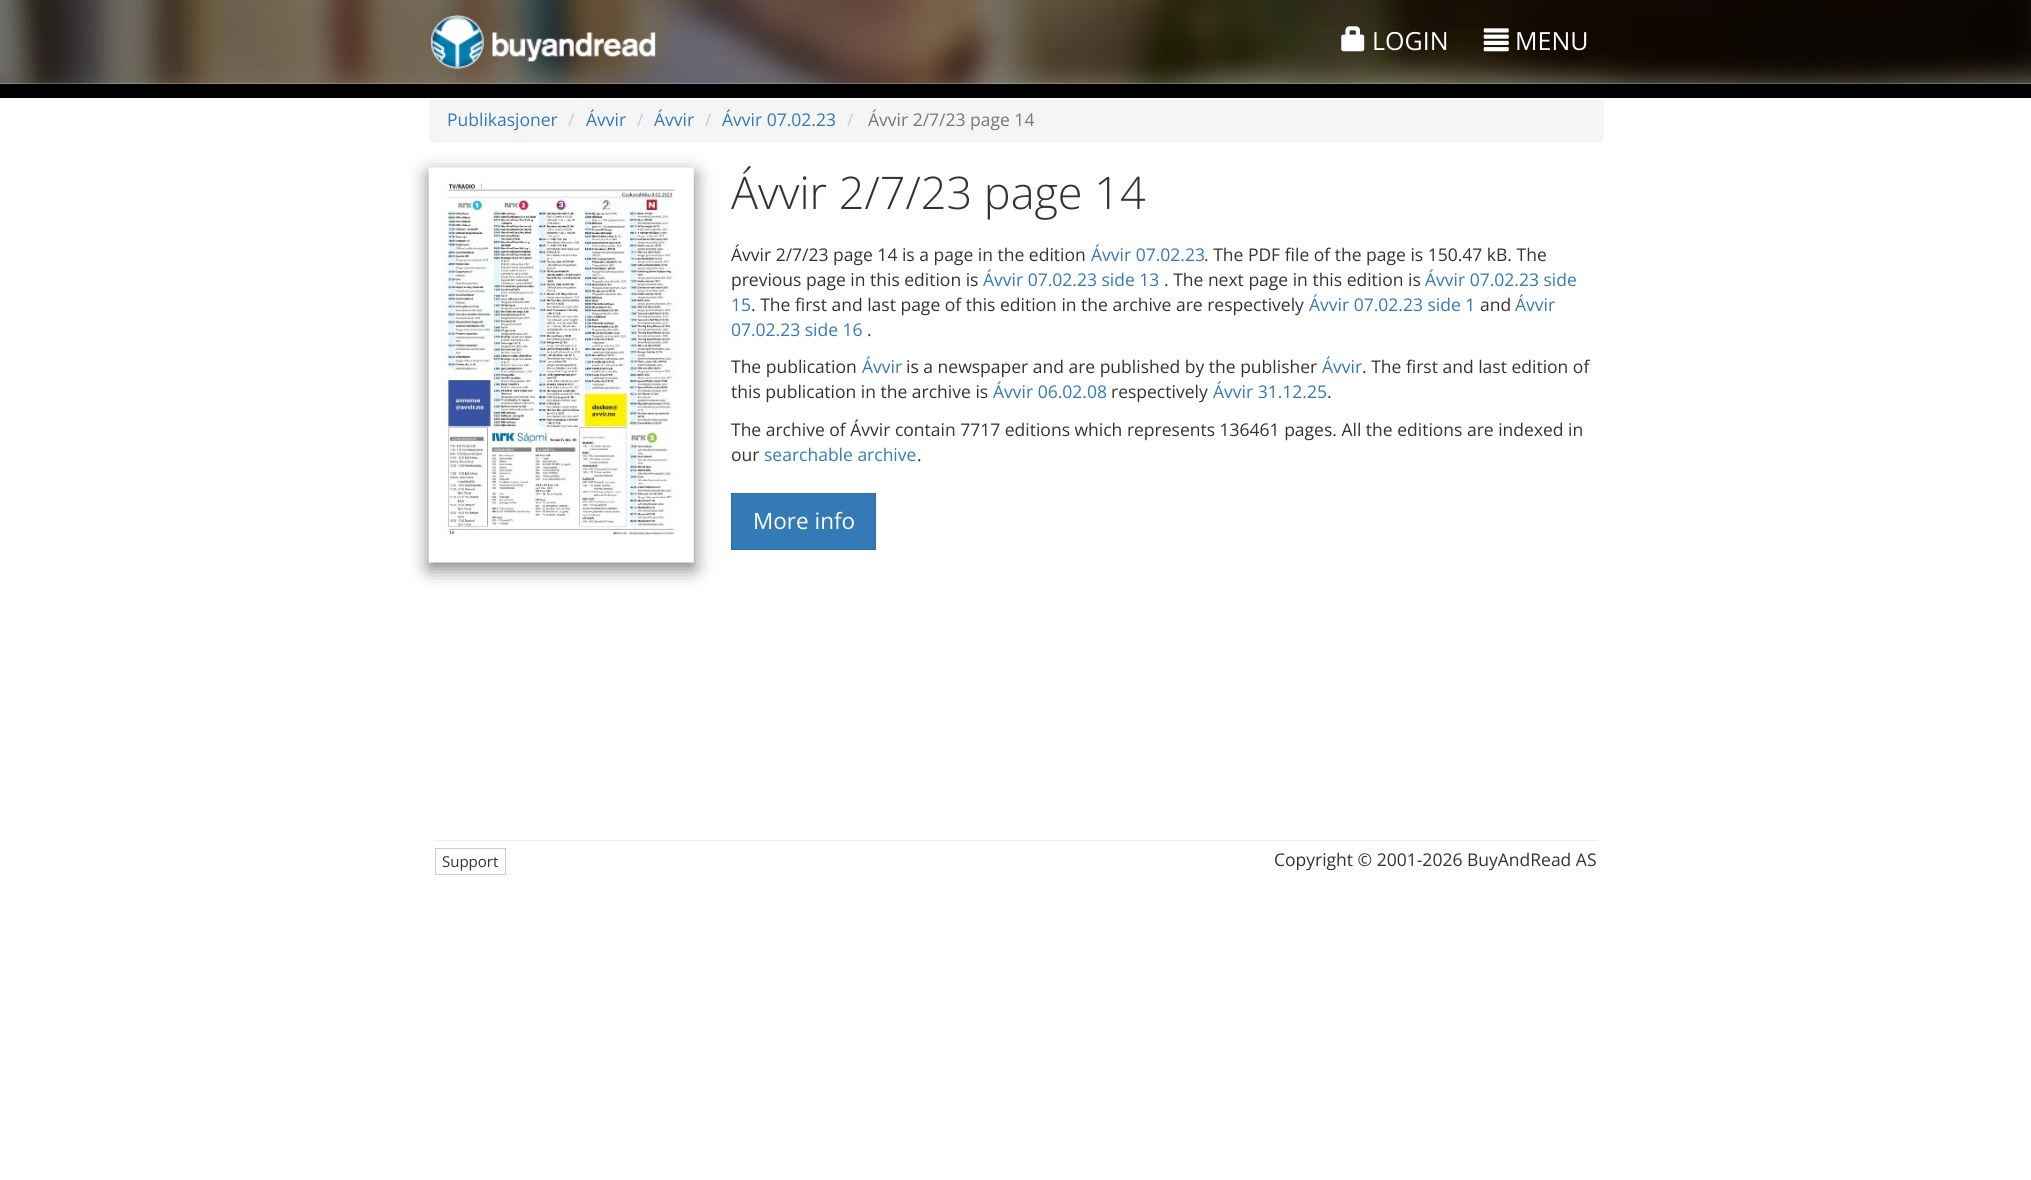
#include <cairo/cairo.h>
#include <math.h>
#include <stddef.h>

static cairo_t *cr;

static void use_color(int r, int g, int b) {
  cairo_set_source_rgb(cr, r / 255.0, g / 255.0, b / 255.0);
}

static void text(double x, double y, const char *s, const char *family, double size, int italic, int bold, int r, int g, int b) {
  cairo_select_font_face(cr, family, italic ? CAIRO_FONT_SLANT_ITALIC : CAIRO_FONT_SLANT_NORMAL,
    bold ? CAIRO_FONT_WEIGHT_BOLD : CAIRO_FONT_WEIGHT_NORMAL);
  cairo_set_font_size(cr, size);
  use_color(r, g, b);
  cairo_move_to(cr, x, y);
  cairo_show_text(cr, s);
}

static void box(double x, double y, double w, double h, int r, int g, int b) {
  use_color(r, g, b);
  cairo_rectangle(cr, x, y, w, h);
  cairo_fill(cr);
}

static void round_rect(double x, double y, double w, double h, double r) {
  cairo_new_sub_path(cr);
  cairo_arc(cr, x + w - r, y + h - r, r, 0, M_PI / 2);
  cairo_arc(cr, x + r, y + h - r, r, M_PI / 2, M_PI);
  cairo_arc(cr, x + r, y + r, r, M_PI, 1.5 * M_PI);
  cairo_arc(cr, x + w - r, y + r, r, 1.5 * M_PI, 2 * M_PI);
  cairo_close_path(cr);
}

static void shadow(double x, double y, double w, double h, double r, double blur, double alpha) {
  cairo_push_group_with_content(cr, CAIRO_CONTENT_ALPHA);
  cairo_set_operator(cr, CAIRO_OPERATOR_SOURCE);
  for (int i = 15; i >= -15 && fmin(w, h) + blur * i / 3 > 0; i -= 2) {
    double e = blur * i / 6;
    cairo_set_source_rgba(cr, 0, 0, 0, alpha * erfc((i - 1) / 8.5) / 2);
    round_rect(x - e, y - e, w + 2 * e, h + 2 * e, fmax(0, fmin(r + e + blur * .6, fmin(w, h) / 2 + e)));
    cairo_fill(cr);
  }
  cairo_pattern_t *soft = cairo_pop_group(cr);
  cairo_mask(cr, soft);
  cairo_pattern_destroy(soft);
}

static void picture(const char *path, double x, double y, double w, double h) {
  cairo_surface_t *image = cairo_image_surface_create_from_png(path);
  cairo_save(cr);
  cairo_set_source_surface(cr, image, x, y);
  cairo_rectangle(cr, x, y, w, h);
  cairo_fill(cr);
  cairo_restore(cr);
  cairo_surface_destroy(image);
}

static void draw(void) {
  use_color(255, 255, 255);
  cairo_paint(cr);
  picture("img_01.png", 0, 0, 2031, 84);
  picture("img_02.png", 431, 14, 225, 55);
  picture("img_03.png", 1341, 26, 24, 26);
  picture("img_04.png", 1483, 28, 26, 24);
  box(0, 84, 2031, 14, 0, 0, 0);
  use_color(245, 245, 245);
  round_rect(429, 98, 1175, 45, 5);
  cairo_fill(cr);
  use_color(0, 0, 0);
  shadow(429, 174, 265, 395, 0, 9.5, 0.5);
  picture("img_05.png", 428, 167, 266, 396);
  use_color(51, 122, 183);
  cairo_rectangle(cr, 731.5, 493.5, 144, 56);
  cairo_fill_preserve(cr);
  use_color(46, 109, 164);
  cairo_set_line_width(cr, 1);
  cairo_stroke(cr);
  box(435, 840, 1163, 1, 238, 238, 238);
  cairo_rectangle(cr, 435.5, 848.5, 70, 26);
  use_color(204, 204, 204);
  cairo_stroke(cr);
  text(1372, 50, "LOGIN", "Open Sans", 25, 0, 0, 255, 255, 255);
  text(1515, 50, "MENU", "Open Sans", 25, 0, 0, 255, 255, 255);
  text(447, 126, "Publikasjoner", "Open Sans", 17.5, 0, 0, 51, 122, 183);
  text(568, 126, "/", "Open Sans", 17.5, 0, 0, 204, 204, 204);
  text(586, 126, "Ávvir", "Open Sans", 17.5, 0, 0, 51, 122, 183);
  text(637, 126, "/", "Open Sans", 17.5, 0, 0, 204, 204, 204);
  text(654, 126, "Ávvir", "Open Sans", 17.5, 0, 0, 51, 122, 183);
  text(705, 126, "/", "Open Sans", 17.5, 0, 0, 204, 204, 204);
  text(722, 126, "Ávvir 07.02.23", "Open Sans", 17.5, 0, 0, 51, 122, 183);
  text(847, 126, "/", "Open Sans", 17.5, 0, 0, 204, 204, 204);
  text(868, 126, "Ávvir 2/7/23 page 14", "Open Sans", 17.5, 0, 0, 119, 119, 119);
  text(731, 209, "Ávvir 2/7/23 page 14", "Open Sans Light", 45, 0, 0, 51, 51, 51);
  text(731, 261, "Ávvir 2/7/23 page 14 is a page in the edition", "Open Sans", 17.5, 0, 0, 51, 51, 51);
  text(1091, 261, "Ávvir 07.02.23", "Open Sans", 17.5, 0, 0, 51, 122, 183);
  text(1204, 261, ". The PDF file of the page is 150.47 kB. The", "Open Sans", 17.5, 0, 0, 51, 51, 51);
  text(731, 286, "previous page in this edition is", "Open Sans", 17.5, 0, 0, 51, 51, 51);
  text(983, 286, "Ávvir 07.02.23 side 13", "Open Sans", 17.5, 0, 0, 51, 122, 183);
  text(1164, 286, ". The next page in this edition is", "Open Sans", 17.5, 0, 0, 51, 51, 51);
  text(1425, 286, "Ávvir 07.02.23 side", "Open Sans", 17.5, 0, 0, 51, 122, 183);
  text(731, 311, "15", "Open Sans", 17.5, 0, 0, 51, 122, 183);
  text(751, 311, ". The first and last page of this edition in the archive are respectively", "Open Sans", 17.5, 0, 0, 51, 51, 51);
  text(1309, 311, "Ávvir 07.02.23 side 1", "Open Sans", 17.5, 0, 0, 51, 122, 183);
  text(1480, 311, "and", "Open Sans", 17.5, 0, 0, 51, 51, 51);
  text(1515, 311, "Ávvir", "Open Sans", 17.5, 0, 0, 51, 122, 183);
  text(731, 336, "07.02.23 side 16", "Open Sans", 17.5, 0, 0, 51, 122, 183);
  text(867, 336, ".", "Open Sans", 17.5, 0, 0, 51, 51, 51);
  text(731, 373, "The publication", "Open Sans", 17.5, 0, 0, 51, 51, 51);
  text(862, 373, "Ávvir", "Open Sans", 17.5, 0, 0, 51, 122, 183);
  text(906, 373, "is a newspaper and are published by the publisher", "Open Sans", 17.5, 0, 0, 51, 51, 51);
  text(1322, 373, "Ávvir", "Open Sans", 17.5, 0, 0, 51, 122, 183);
  text(1362, 373, ". The first and last edition of", "Open Sans", 17.5, 0, 0, 51, 51, 51);
  text(731, 398, "this publication in the archive is", "Open Sans", 17.5, 0, 0, 51, 51, 51);
  text(993, 398, "Ávvir 06.02.08", "Open Sans", 17.5, 0, 0, 51, 122, 183);
  text(1111, 398, "respectively", "Open Sans", 17.5, 0, 0, 51, 51, 51);
  text(1213, 398, "Ávvir 31.12.25", "Open Sans", 17.5, 0, 0, 51, 122, 183);
  text(1327, 398, ".", "Open Sans", 17.5, 0, 0, 51, 51, 51);
  text(731, 436, "The archive of Ávvir contain 7717 editions which represents 136461 pages. All the editions are indexed in", "Open Sans", 17.5, 0, 0, 51, 51, 51);
  text(731, 461, "our", "Open Sans", 17.5, 0, 0, 51, 51, 51);
  text(764, 461, "searchable archive", "Open Sans", 17.5, 0, 0, 51, 122, 183);
  text(917, 461, ".", "Open Sans", 17.5, 0, 0, 51, 51, 51);
  text(753, 529, "More info", "Open Sans", 22.5, 0, 0, 255, 255, 255);
  text(442, 867, "Support", "Open Sans", 15, 0, 0, 51, 51, 51);
  text(1274, 866, "Copyright © 2001-2026 BuyAndRead AS", "Open Sans", 17.5, 0, 0, 51, 51, 51);
}

int main(void) {
  cairo_surface_t *surface = cairo_image_surface_create(CAIRO_FORMAT_RGB24, 2031, 1180);
  cr = cairo_create(surface);
  cairo_font_options_t *options = cairo_font_options_create();
  cairo_font_options_set_hint_metrics(options, CAIRO_HINT_METRICS_OFF);
  cairo_font_options_set_hint_style(options, CAIRO_HINT_STYLE_NONE);
  cairo_set_font_options(cr, options);
  cairo_set_miter_limit(cr, 4);
  draw();
  cairo_surface_write_to_png(surface, "out.png");
  cairo_font_options_destroy(options);
  cairo_destroy(cr);
  cairo_surface_destroy(surface);
  return 0;
}
